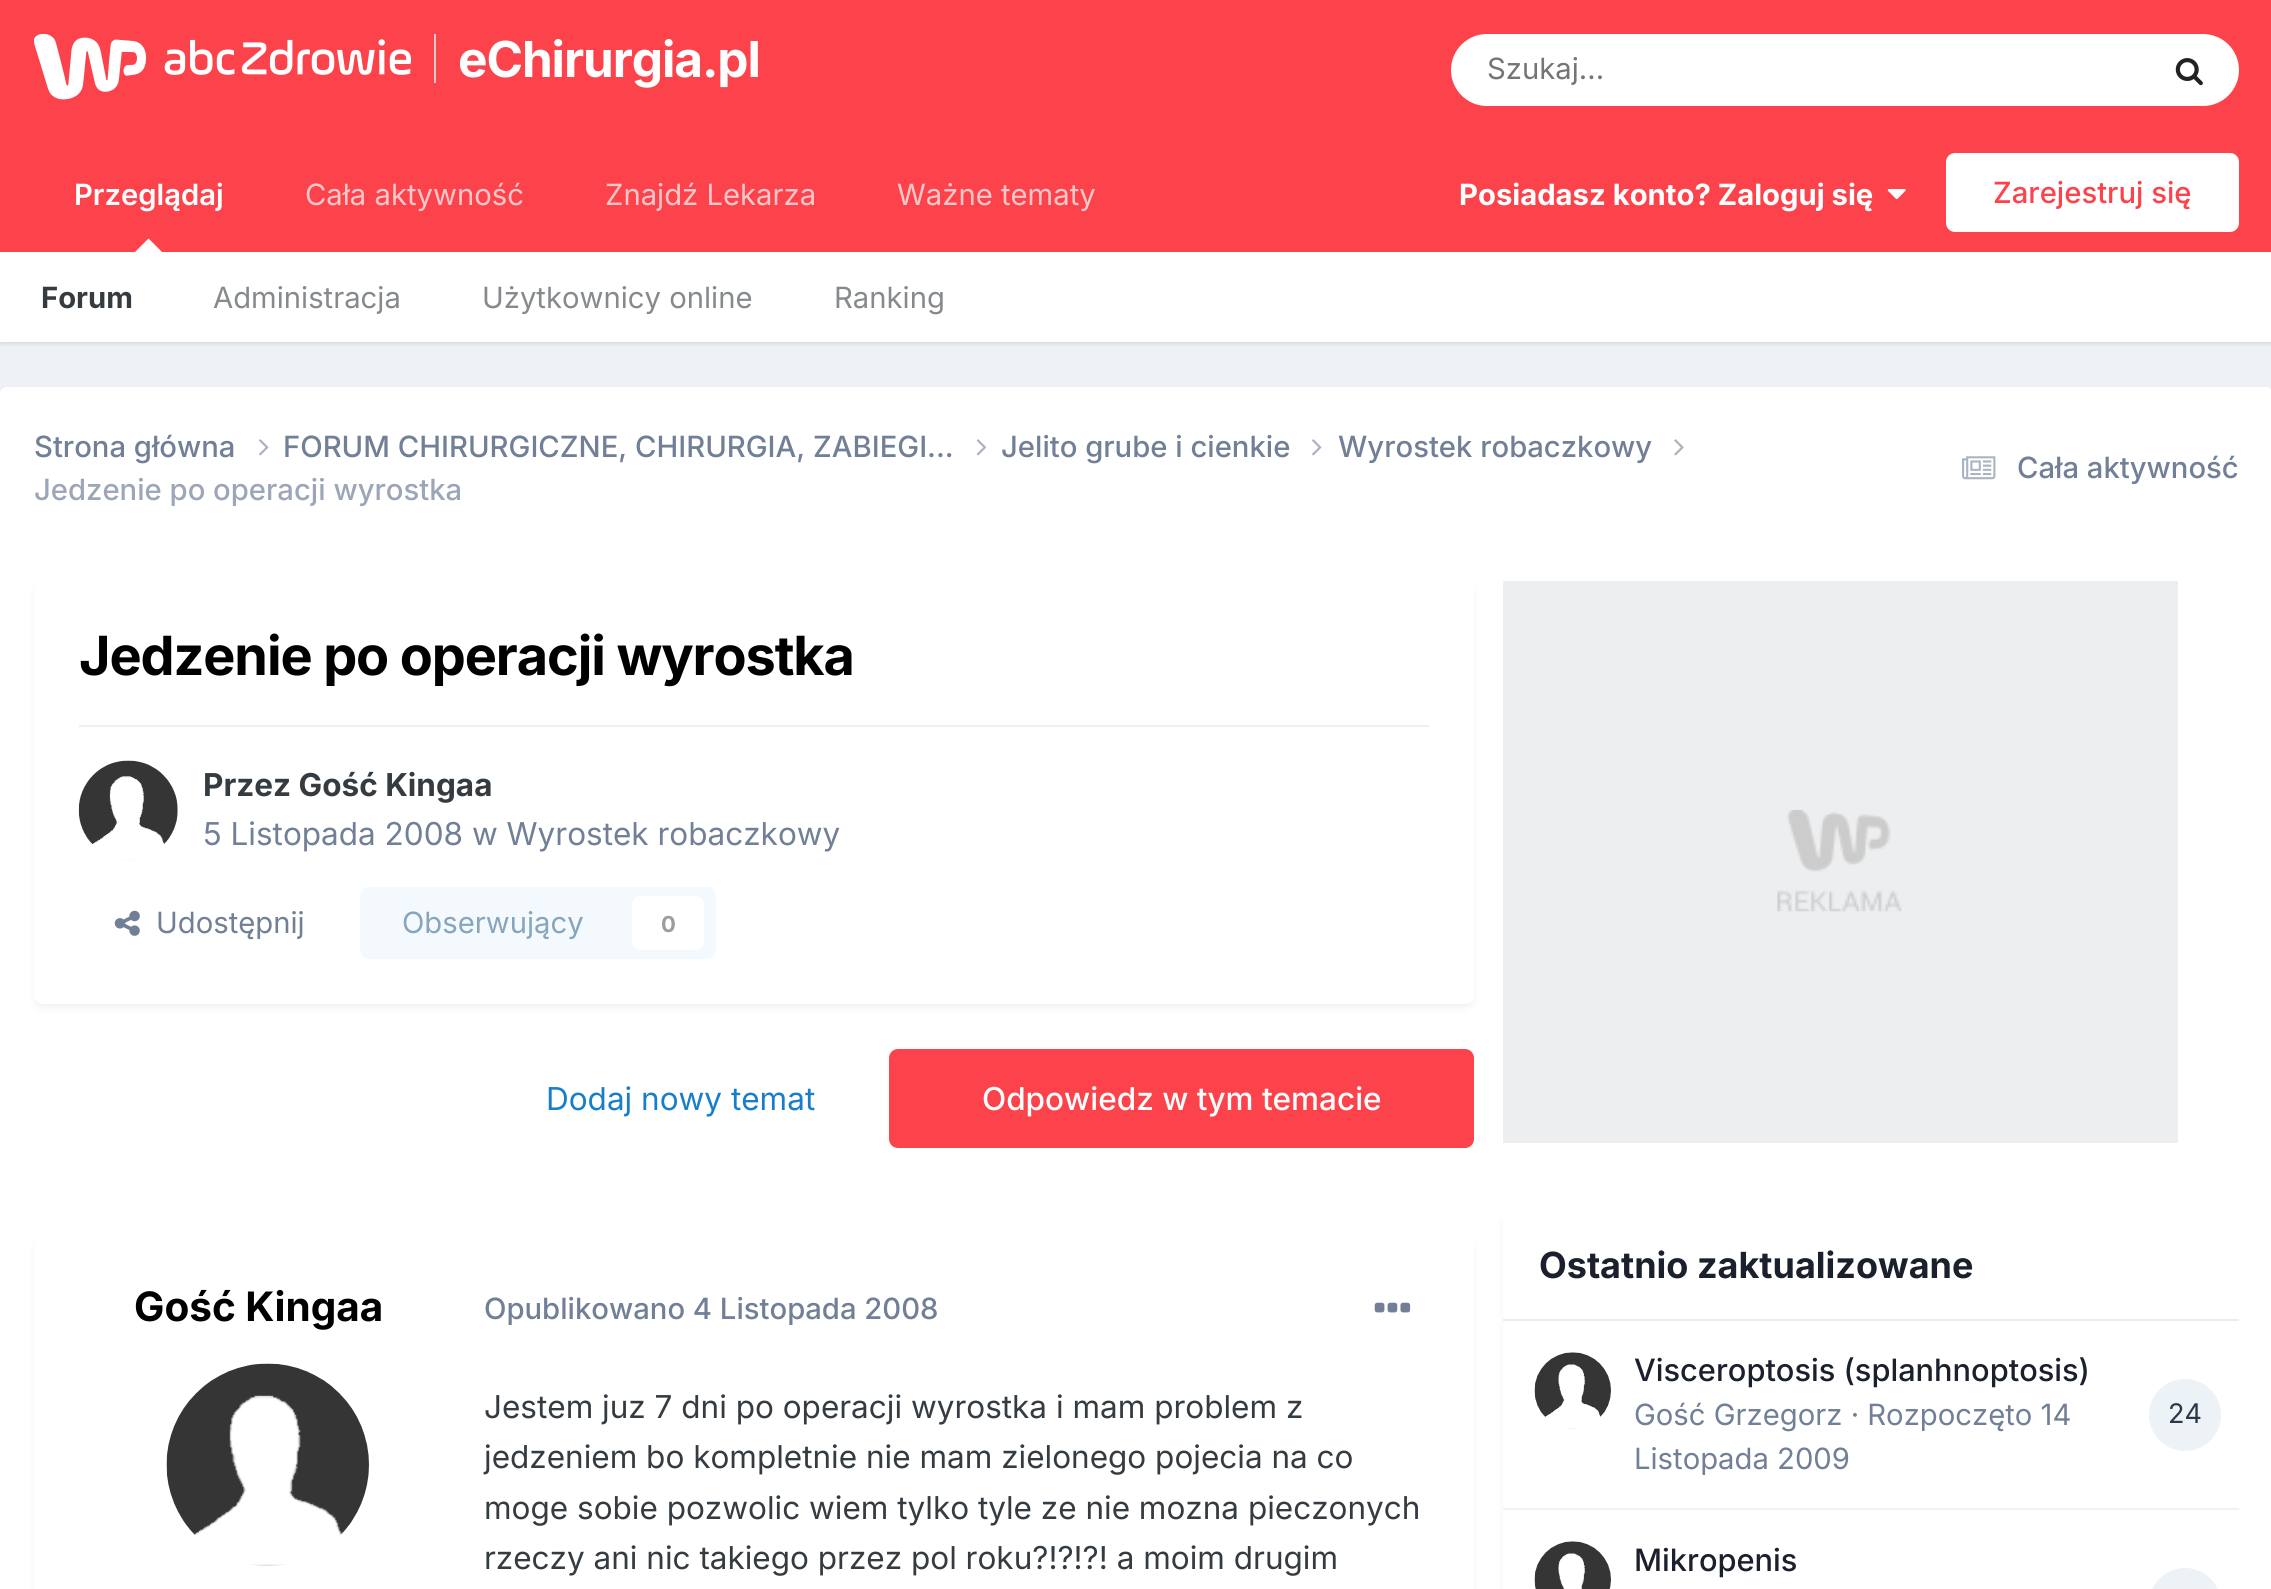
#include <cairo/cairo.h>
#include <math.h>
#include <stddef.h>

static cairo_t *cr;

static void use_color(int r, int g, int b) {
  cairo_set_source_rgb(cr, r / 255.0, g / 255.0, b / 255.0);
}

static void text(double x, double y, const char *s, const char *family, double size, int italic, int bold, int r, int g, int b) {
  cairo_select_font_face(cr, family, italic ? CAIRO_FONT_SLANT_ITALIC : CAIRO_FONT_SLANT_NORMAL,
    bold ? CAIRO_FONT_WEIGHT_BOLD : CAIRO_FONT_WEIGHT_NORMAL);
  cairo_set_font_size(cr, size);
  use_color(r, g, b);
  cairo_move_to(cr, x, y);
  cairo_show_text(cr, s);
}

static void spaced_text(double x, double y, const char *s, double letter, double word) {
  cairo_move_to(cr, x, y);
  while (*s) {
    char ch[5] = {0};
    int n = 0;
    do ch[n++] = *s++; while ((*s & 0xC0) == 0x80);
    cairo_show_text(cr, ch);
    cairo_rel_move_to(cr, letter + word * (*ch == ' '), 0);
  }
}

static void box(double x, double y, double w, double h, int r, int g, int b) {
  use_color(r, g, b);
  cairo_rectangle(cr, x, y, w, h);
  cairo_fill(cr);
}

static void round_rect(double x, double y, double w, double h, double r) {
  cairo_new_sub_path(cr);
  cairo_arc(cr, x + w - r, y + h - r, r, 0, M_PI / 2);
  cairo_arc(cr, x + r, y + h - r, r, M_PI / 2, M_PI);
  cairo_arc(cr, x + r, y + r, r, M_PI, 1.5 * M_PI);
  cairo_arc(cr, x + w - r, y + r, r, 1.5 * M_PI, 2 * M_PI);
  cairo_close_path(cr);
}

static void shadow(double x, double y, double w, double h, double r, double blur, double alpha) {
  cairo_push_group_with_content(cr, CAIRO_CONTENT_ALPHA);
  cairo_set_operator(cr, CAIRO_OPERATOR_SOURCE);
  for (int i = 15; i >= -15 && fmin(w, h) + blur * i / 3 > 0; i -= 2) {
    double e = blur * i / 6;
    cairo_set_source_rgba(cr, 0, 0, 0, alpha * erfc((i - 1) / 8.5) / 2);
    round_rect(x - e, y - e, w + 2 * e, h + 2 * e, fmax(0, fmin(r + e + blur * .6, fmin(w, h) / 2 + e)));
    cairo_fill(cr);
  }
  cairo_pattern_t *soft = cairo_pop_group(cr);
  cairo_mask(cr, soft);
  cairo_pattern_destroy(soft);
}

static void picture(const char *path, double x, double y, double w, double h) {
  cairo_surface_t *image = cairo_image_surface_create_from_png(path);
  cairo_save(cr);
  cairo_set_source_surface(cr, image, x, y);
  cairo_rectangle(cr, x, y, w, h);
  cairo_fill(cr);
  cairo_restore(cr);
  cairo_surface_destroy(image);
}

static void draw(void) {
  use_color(237, 240, 244);
  cairo_paint(cr);
  box(0, 0, 2271, 252, 252, 67, 75);
  picture("img_01.png", 34, 34, 378, 66);
  box(434, 34, 2, 49, 204, 204, 204);
  use_color(255, 255, 255);
  round_rect(1451, 34, 788, 72, 36);
  cairo_fill(cr);
  picture("img_02.png", 2175, 58, 28, 28);
  picture("img_03.png", 1887, 189, 19, 11);
  round_rect(1946, 153, 293, 79, 9);
  cairo_fill(cr);
  use_color(0, 0, 0);
  shadow(0, 254, 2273, 90, 0, 2, 0.1);
  use_color(255, 255, 255);
  cairo_new_path(cr);
  cairo_move_to(cr, 162, 252);
  cairo_line_to(cr, 135, 252);
  cairo_line_to(cr, 148.5, 238.5);
  cairo_close_path(cr);
  cairo_fill(cr);
  box(0, 252, 2271, 90, 255, 255, 255);
  round_rect(0, 387, 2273, 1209, 7);
  cairo_fill(cr);
  picture("img_04.png", 259, 439, 10, 17);
  picture("img_05.png", 976, 439, 11, 17);
  picture("img_04.png", 1312, 439, 10, 17);
  picture("img_06.png", 1674, 439, 10, 17);
  picture("img_07.png", 1962, 456, 34, 24);
  use_color(45, 55, 72);
  shadow(36, 587, 1436, 419, 7, 4.5, 0.1);
  use_color(255, 255, 255);
  round_rect(34, 581, 1440, 423, 9);
  cairo_fill(cr);
  box(79, 725, 1350, 2, 239, 239, 240);
  picture("img_08.png", 78, 760, 100, 100);
  picture("img_09.png", 114, 910, 26, 26);
  use_color(244, 249, 253);
  round_rect(360, 887, 356, 72, 9);
  cairo_fill(cr);
  use_color(255, 255, 255);
  round_rect(632, 896, 72, 54, 9);
  cairo_fill(cr);
  use_color(252, 67, 75);
  round_rect(889, 1049, 585, 99, 9);
  cairo_fill(cr);
  use_color(45, 55, 72);
  shadow(36, 1244, 1436, 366, 7, 4.5, 0.1);
  use_color(255, 255, 255);
  round_rect(34, 1238, 1440, 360, 9);
  cairo_fill(cr);
  picture("img_10.png", 166, 1363, 203, 203);
  picture("img_11.png", 1374, 1302, 37, 11);
  box(1503, 581, 675, 562, 236, 238, 240);
  picture("img_12.png", 1777, 810, 125, 102);
  cairo_save(cr);
  cairo_rectangle(cr, 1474, 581, 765, 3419);
  cairo_clip(cr);
  use_color(45, 55, 72);
  shadow(1505, 1217, 732, 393, 7, 4.5, 0.1);
  cairo_restore(cr);
  use_color(255, 255, 255);
  round_rect(1503, 1211, 736, 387, 9);
  cairo_fill(cr);
  box(1503, 1319, 736, 2, 234, 236, 239);
  box(1503, 1508, 736, 2, 241, 242, 245);
  picture("img_13.png", 1534, 1352, 77, 77);
  use_color(237, 242, 247);
  cairo_arc(cr, 2185, 1415, 36, 0, 2 * M_PI);
  cairo_fill(cr);
  picture("img_14.png", 1534, 1541, 77, 48);
  round_rect(2149, 1568, 72, 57, 36);
  cairo_fill(cr);
  cairo_select_font_face(cr, "Inter", CAIRO_FONT_SLANT_NORMAL, CAIRO_FONT_WEIGHT_BOLD);
  cairo_set_font_size(cr, 49.5);
  use_color(255, 255, 255);
  spaced_text(458, 77, "eChirurgia.pl", -1.1, 0);
  text(1487, 79, "Szukaj...", "Inter", 29.25, 0, 0, 117, 117, 117);
  text(1459, 205, "Posiadasz konto? Zaloguj się", "Inter", 29.25, 0, 1, 255, 255, 255);
  text(1993, 203, "Zarejestruj się", "Inter Medium", 29.25, 0, 0, 252, 67, 75);
  text(74, 205, "Przeglądaj", "Inter SemiBold", 29.25, 0, 0, 255, 255, 255);
  text(41, 308, "Forum", "Inter", 29.25, 0, 1, 53, 60, 65);
  text(213, 308, "Administracja", "Inter", 29.25, 0, 0, 134, 138, 141);
  text(482, 308, "Użytkownicy online", "Inter", 29.25, 0, 0, 134, 138, 141);
  text(834, 308, "Ranking", "Inter", 29.25, 0, 0, 134, 138, 141);
  text(305, 205, "Cała aktywność", "Inter", 29.25, 0, 0, 254, 199, 201);
  text(605, 205, "Znajdź Lekarza", "Inter", 29.25, 0, 0, 254, 199, 201);
  text(897, 205, "Ważne tematy", "Inter", 29.25, 0, 0, 254, 199, 201);
  text(34, 457, "Strona główna", "Inter Medium", 29.25, 0, 0, 113, 128, 150);
  text(283, 457, "FORUM CHIRURGICZNE, CHIRURGIA, ZABIEGI...", "Inter Medium", 29.25, 0, 0, 113, 128, 150);
  text(1001, 457, "Jelito grube i cienkie", "Inter Medium", 29.25, 0, 0, 113, 128, 150);
  text(1338, 457, "Wyrostek robaczkowy", "Inter Medium", 29.25, 0, 0, 113, 128, 150);
  text(34, 500, "Jedzenie po operacji wyrostka", "Inter Medium", 29.25, 0, 0, 156, 166, 182);
  text(2017, 478, "Cała aktywność", "Inter Medium", 29.25, 0, 0, 113, 128, 150);
  cairo_select_font_face(cr, "Inter", CAIRO_FONT_SLANT_NORMAL, CAIRO_FONT_WEIGHT_BOLD);
  cairo_set_font_size(cr, 54);
  use_color(0, 0, 0);
  spaced_text(79, 675, "Jedzenie po operacji wyrostka", -1.1, 0);
  text(203, 796, "Przez Gość Kingaa", "Inter", 31.5, 0, 1, 53, 60, 65);
  text(203, 845, "5 Listopada 2008 w Wyrostek robaczkowy", "Inter", 31.5, 0, 0, 113, 128, 150);
  text(156, 933, "Udostępnij", "Inter", 29.25, 0, 0, 113, 128, 150);
  text(402, 933, "Obserwujący", "Inter", 29.25, 0, 0, 135, 166, 188);
  text(661, 932, "0", "Inter", 22, 0, 1, 154, 158, 160);
  text(546, 1110, "Dodaj nowy temat", "Inter", 31.5, 0, 0, 23, 126, 201);
  text(982, 1110, "Odpowiedz w tym temacie", "Inter Medium", 31.5, 0, 0, 255, 255, 255);
  text(134, 1321, "Gość Kingaa", "Inter", 40.5, 0, 1, 0, 0, 0);
  text(484, 1319, "Opublikowano 4 Listopada 2008", "Inter Medium", 29.25, 0, 0, 113, 128, 150);
  text(484, 1418, "Jestem juz 7 dni po operacji wyrostka i mam problem z", "Inter", 31.5, 0, 0, 53, 60, 65);
  text(484, 1468, "jedzeniem bo kompletnie nie mam zielonego pojecia na co", "Inter", 31.5, 0, 0, 53, 60, 65);
  text(484, 1519, "moge sobie pozwolic wiem tylko tyle ze nie mozna pieczonych", "Inter", 31.5, 0, 0, 53, 60, 65);
  text(484, 1569, "rzeczy ani nic takiego przez pol roku?!?!?! a moim drugim", "Inter", 31.5, 0, 0, 53, 60, 65);
  text(1539, 1278, "Ostatnio zaktualizowane", "Inter", 36, 0, 1, 26, 32, 44);
  text(1634, 1381, "Visceroptosis (splanhnoptosis)", "Inter Medium", 30.75, 0, 0, 26, 32, 44);
  text(1634, 1425, "Gość Grzegorz · Rozpoczęto 14", "Inter", 29.25, 0, 0, 113, 128, 150);
  text(1634, 1469, "Listopada 2009", "Inter", 29.25, 0, 0, 113, 128, 150);
  text(2168, 1423, "24", "Inter", 27, 0, 0, 45, 55, 72);
  text(1634, 1571, "Mikropenis", "Inter Medium", 30.75, 0, 0, 26, 32, 44);
}

int main(void) {
  cairo_surface_t *surface = cairo_image_surface_create(CAIRO_FORMAT_RGB24, 2271, 1589);
  cr = cairo_create(surface);
  cairo_font_options_t *options = cairo_font_options_create();
  cairo_font_options_set_hint_metrics(options, CAIRO_HINT_METRICS_OFF);
  cairo_font_options_set_hint_style(options, CAIRO_HINT_STYLE_NONE);
  cairo_set_font_options(cr, options);
  cairo_set_miter_limit(cr, 4);
  draw();
  cairo_surface_write_to_png(surface, "out.png");
  cairo_font_options_destroy(options);
  cairo_destroy(cr);
  cairo_surface_destroy(surface);
  return 0;
}
